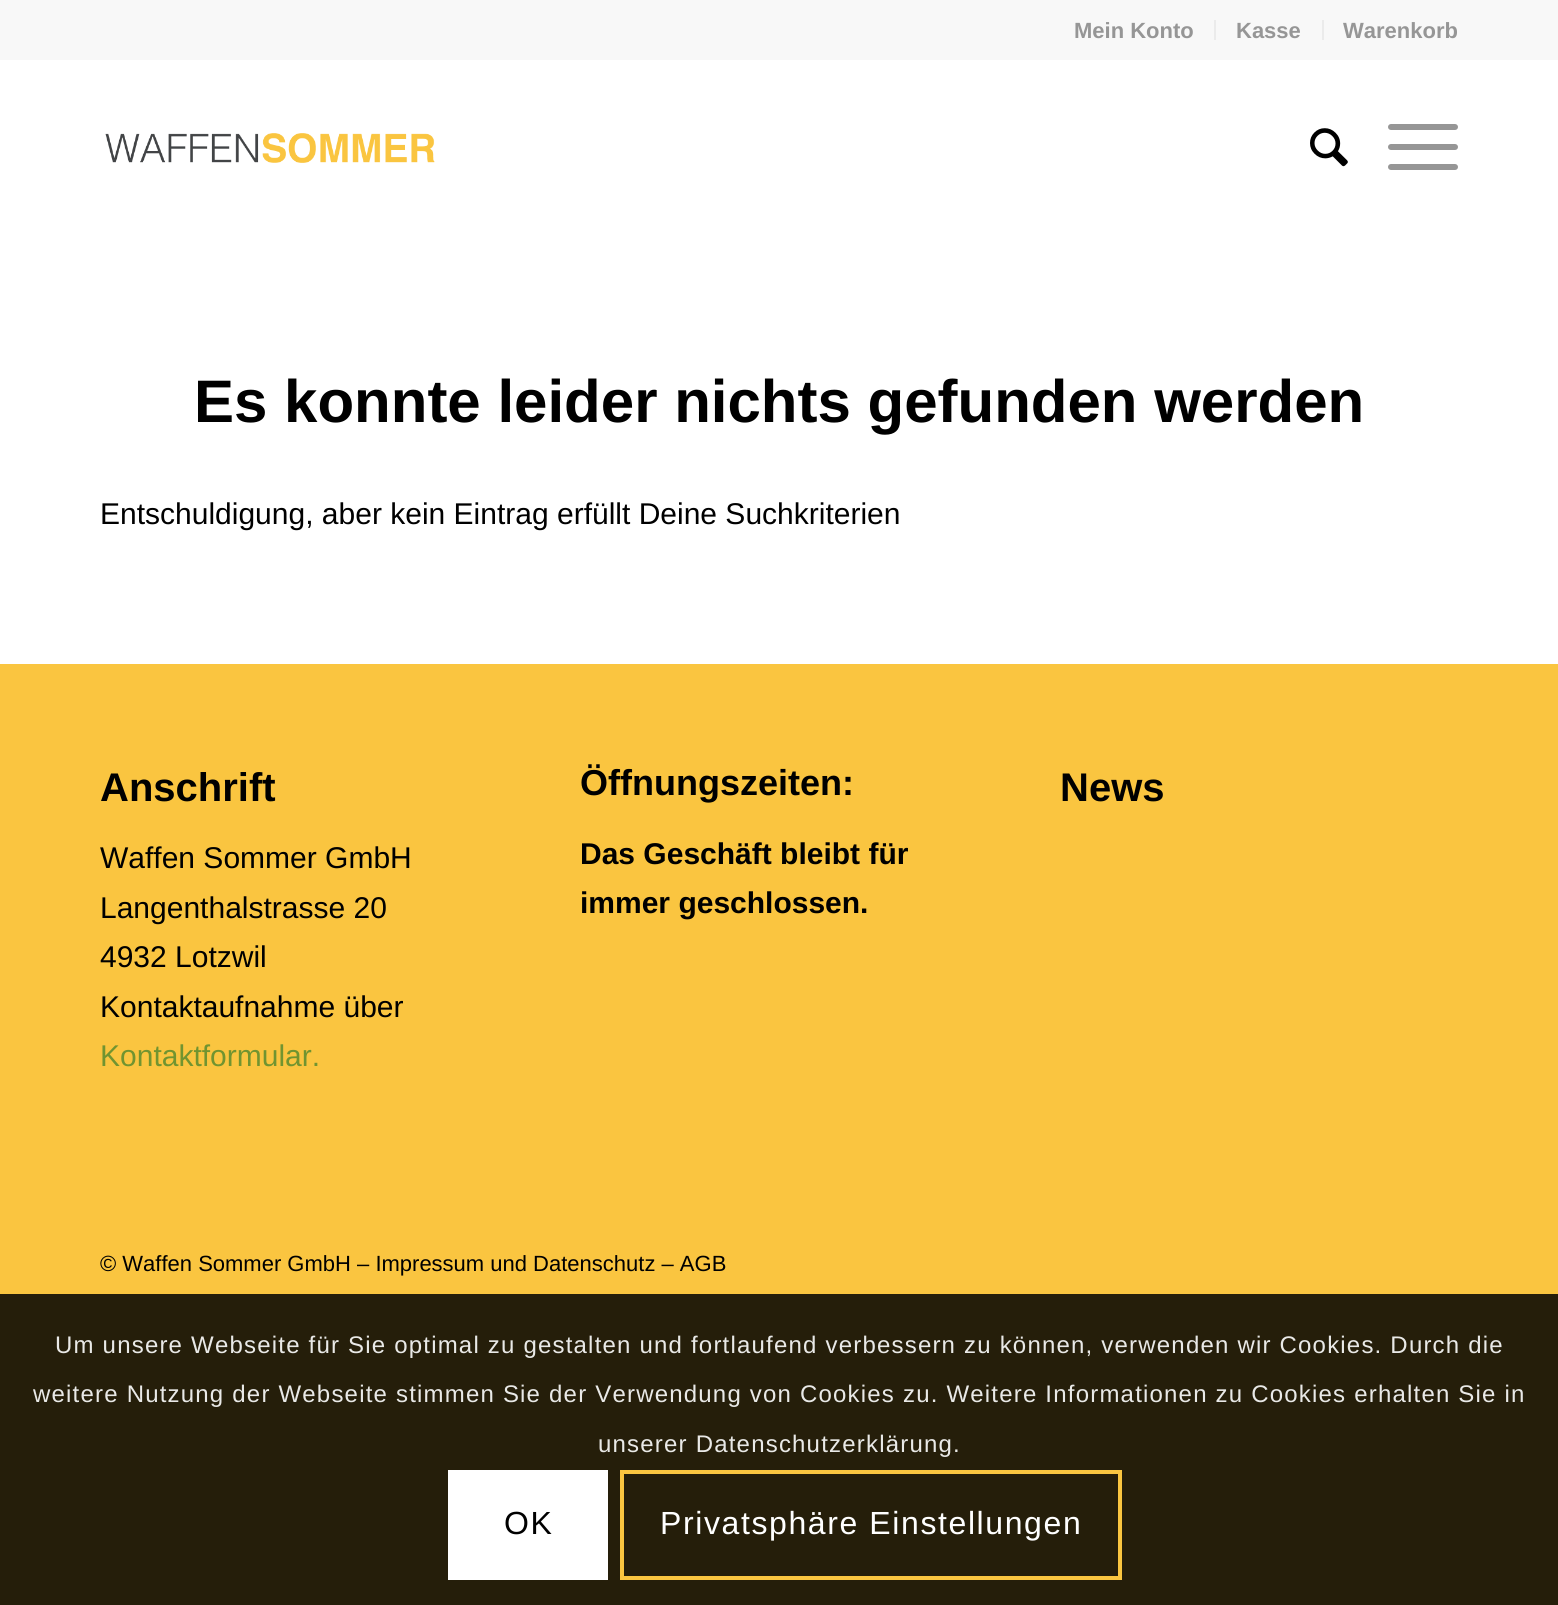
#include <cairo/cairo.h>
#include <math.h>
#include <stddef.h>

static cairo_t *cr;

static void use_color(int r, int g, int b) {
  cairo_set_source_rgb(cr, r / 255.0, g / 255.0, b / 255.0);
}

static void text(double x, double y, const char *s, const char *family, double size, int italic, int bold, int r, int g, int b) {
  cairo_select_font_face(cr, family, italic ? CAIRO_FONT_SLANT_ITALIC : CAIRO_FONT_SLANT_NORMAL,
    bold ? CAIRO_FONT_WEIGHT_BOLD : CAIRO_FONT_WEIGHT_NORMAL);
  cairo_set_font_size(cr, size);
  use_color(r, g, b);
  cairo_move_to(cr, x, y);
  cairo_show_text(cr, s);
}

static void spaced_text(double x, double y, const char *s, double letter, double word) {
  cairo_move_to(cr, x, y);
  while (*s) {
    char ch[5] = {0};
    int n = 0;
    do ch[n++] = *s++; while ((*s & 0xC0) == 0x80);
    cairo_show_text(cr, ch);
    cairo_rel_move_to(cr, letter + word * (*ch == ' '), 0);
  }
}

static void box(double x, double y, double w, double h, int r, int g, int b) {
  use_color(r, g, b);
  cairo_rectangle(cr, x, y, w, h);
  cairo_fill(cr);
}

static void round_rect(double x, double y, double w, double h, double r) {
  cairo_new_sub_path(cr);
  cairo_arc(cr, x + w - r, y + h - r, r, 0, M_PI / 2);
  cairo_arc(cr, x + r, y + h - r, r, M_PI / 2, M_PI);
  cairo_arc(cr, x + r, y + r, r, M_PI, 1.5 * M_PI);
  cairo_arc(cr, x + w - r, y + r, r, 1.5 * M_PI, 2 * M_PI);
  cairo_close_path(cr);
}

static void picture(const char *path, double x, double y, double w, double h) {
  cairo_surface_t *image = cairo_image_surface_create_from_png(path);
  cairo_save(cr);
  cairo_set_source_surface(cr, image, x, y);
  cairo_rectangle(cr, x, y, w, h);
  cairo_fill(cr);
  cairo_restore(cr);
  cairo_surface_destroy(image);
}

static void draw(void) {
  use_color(255, 255, 255);
  cairo_paint(cr);
  box(0, 0, 1558, 60, 248, 248, 248);
  box(1214, 20, 2, 20, 235, 235, 235);
  box(1322, 20, 2, 20, 235, 235, 235);
  picture("img_01.png", 105, 133, 330, 30);
  picture("img_02.png", 1310, 128, 38, 39);
  use_color(150, 150, 150);
  round_rect(1388, 144, 70, 6, 3);
  cairo_fill(cr);
  round_rect(1388, 124, 70, 6, 3);
  cairo_fill(cr);
  round_rect(1388, 164, 70, 6, 3);
  cairo_fill(cr);
  box(0, 664, 1558, 630, 250, 197, 64);
  box(0, 1294, 1558, 311, 37, 30, 10);
  box(448, 1470, 160, 110, 255, 255, 255);
  cairo_rectangle(cr, 622, 1472, 498, 106);
  use_color(250, 197, 64);
  cairo_set_line_width(cr, 4);
  cairo_stroke(cr);
  text(1074, 38, "Mein Konto", "Liberation Sans", 22, 0, 1, 150, 150, 150);
  text(1236, 38, "Kasse", "Liberation Sans", 22, 0, 1, 150, 150, 150);
  text(1343, 38, "Warenkorb", "Liberation Sans", 22, 0, 1, 150, 150, 150);
  text(194, 422, "Es konnte leider nichts gefunden werden", "Liberation Sans", 60, 0, 1, 0, 0, 0);
  text(100, 524, "Entschuldigung, aber kein Eintrag erfüllt Deine Suchkriterien", "Liberation Sans", 30, 0, 0, 0, 0, 0);
  text(100, 801, "Anschrift", "Liberation Sans", 40, 0, 1, 0, 0, 0);
  text(100, 868, "Waffen Sommer GmbH", "Liberation Sans", 30, 0, 0, 0, 0, 0);
  text(100, 918, "Langenthalstrasse 20", "Liberation Sans", 30, 0, 0, 0, 0, 0);
  text(100, 967, "4932 Lotzwil", "Liberation Sans", 30, 0, 0, 0, 0, 0);
  text(100, 1017, "Kontaktaufnahme über", "Liberation Sans", 30, 0, 0, 0, 0, 0);
  text(100, 1066, "Kontaktformular.", "Liberation Sans", 30, 0, 0, 113, 148, 48);
  text(580, 795, "Öffnungszeiten:", "Liberation Sans", 36, 0, 1, 0, 0, 0);
  text(580, 864, "Das Geschäft bleibt für", "Liberation Sans", 30, 0, 1, 0, 0, 0);
  text(580, 913, "immer geschlossen.", "Liberation Sans", 30, 0, 1, 0, 0, 0);
  text(1060, 801, "News", "Liberation Sans", 40, 0, 1, 0, 0, 0);
  text(100, 1271, "© Waffen Sommer GmbH – Impressum und Datenschutz – AGB", "Liberation Sans", 22, 0, 0, 0, 0, 0);
  cairo_set_font_size(cr, 24);
  use_color(233, 233, 231);
  spaced_text(55, 1353, "Um unsere Webseite für Sie optimal zu gestalten und fortlaufend verbessern zu können, verwenden wir Cookies. Durch die", 1.2, 0);
  spaced_text(33, 1402, "weitere Nutzung der Webseite stimmen Sie der Verwendung von Cookies zu. Weitere Informationen zu Cookies erhalten Sie in", 1.2, 0);
  spaced_text(598, 1452, "unserer Datenschutzerklärung.", 1.2, 0);
  cairo_set_font_size(cr, 32);
  use_color(0, 0, 0);
  spaced_text(504, 1534, "OK", 1.6, 0);
  use_color(255, 255, 255);
  spaced_text(660, 1534, "Privatsphäre Einstellungen", 1.6, 0);
}

int main(void) {
  cairo_surface_t *surface = cairo_image_surface_create(CAIRO_FORMAT_RGB24, 1558, 1605);
  cr = cairo_create(surface);
  cairo_font_options_t *options = cairo_font_options_create();
  cairo_font_options_set_hint_metrics(options, CAIRO_HINT_METRICS_OFF);
  cairo_font_options_set_hint_style(options, CAIRO_HINT_STYLE_NONE);
  cairo_set_font_options(cr, options);
  cairo_set_miter_limit(cr, 4);
  draw();
  cairo_surface_write_to_png(surface, "out.png");
  cairo_font_options_destroy(options);
  cairo_destroy(cr);
  cairo_surface_destroy(surface);
  return 0;
}
